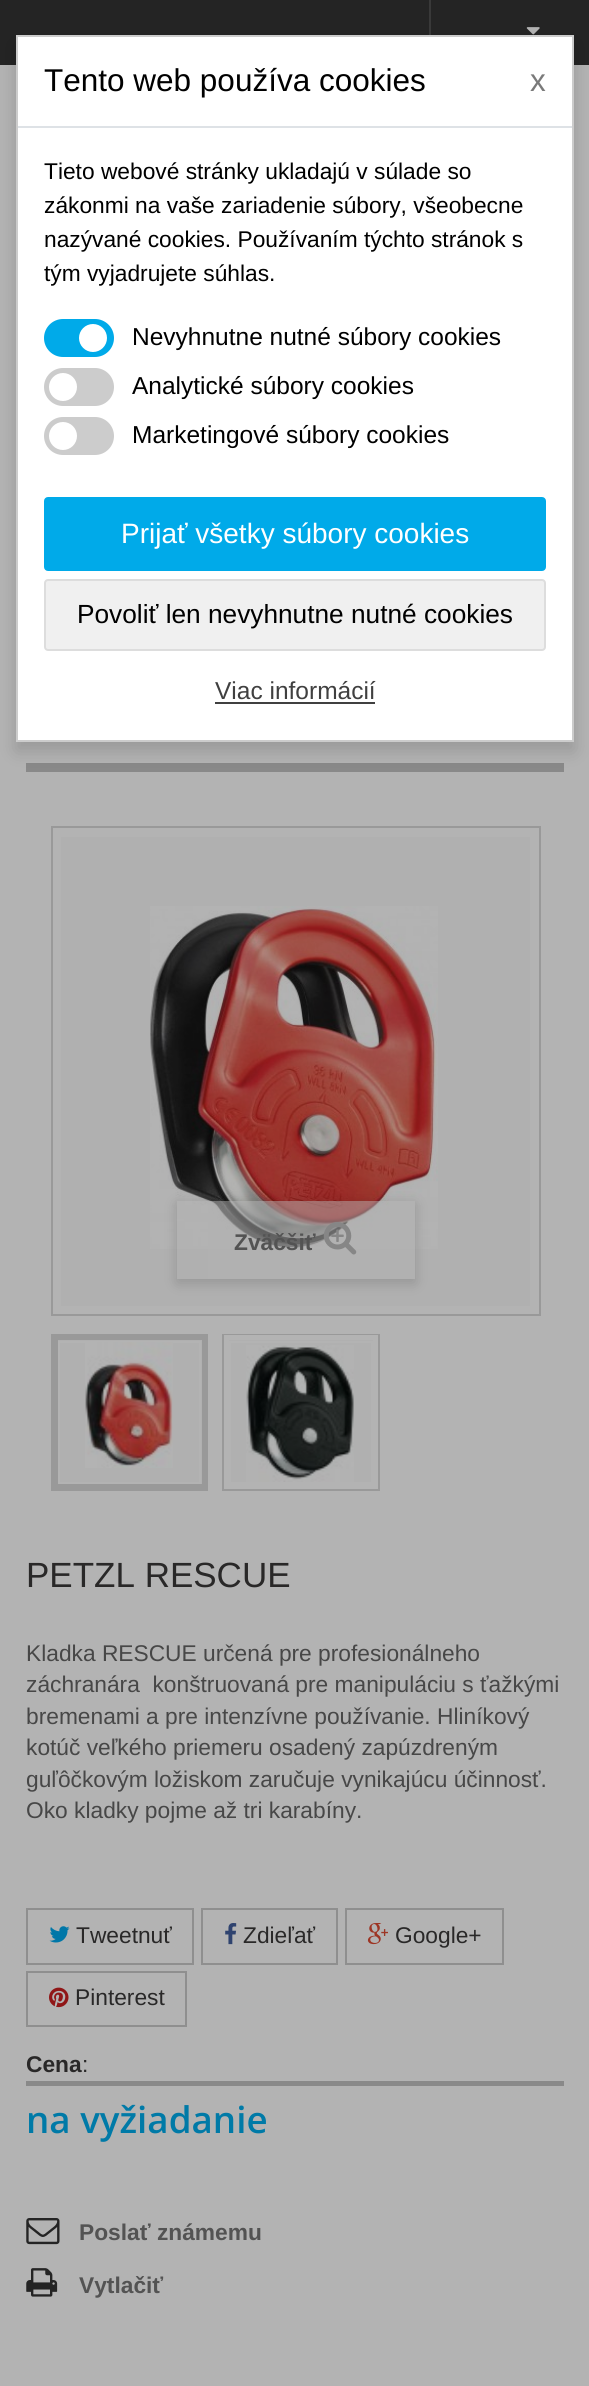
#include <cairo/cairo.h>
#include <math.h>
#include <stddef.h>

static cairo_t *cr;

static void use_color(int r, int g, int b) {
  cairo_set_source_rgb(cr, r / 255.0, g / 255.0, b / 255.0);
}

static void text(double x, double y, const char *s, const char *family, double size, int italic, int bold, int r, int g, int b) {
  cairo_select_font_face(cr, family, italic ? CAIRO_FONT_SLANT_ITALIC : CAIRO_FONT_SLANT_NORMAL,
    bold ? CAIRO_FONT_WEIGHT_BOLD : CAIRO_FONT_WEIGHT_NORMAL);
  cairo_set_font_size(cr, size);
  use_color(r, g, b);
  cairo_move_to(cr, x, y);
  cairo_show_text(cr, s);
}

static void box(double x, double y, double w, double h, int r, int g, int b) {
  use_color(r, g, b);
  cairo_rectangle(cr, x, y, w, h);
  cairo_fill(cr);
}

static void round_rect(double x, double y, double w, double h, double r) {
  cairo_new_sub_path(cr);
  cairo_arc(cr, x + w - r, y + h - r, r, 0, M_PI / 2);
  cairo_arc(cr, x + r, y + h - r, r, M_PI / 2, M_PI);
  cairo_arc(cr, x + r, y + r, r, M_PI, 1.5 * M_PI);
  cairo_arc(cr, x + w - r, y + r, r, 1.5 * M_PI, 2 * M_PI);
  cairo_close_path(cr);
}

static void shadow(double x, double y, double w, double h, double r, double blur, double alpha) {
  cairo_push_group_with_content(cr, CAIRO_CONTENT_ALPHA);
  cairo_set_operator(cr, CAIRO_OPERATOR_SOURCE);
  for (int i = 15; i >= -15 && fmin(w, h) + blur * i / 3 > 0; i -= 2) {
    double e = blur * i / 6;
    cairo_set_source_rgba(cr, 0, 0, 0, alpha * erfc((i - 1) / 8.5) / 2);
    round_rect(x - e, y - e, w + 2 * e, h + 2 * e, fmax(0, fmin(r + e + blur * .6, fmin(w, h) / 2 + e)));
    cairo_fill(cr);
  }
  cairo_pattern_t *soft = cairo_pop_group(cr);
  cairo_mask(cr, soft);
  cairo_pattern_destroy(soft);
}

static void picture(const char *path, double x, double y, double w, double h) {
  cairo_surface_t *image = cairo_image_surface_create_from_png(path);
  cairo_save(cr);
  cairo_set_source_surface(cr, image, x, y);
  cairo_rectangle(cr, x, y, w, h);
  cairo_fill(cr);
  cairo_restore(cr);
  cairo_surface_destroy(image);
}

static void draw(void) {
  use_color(179, 179, 179);
  cairo_paint(cr);
  box(0, 0, 589, 65, 36, 36, 36);
  box(429, 0, 2, 35, 57, 57, 57);
  picture("img_01.png", 526, 27, 14, 8);
  box(26, 763, 538, 9, 137, 137, 137);
  use_color(0, 0, 0);
  shadow(16, 44, 558, 707, 0, 9, 0.15);
  use_color(255, 255, 255);
  cairo_rectangle(cr, 17, 36, 556, 705);
  cairo_fill_preserve(cr);
  use_color(204, 204, 204);
  cairo_stroke(cr);
  box(18, 126, 554, 2, 222, 226, 230);
  use_color(0, 170, 233);
  round_rect(44, 319, 70, 38, 19);
  cairo_fill(cr);
  use_color(255, 255, 255);
  cairo_arc(cr, 93, 338, 14, 0, 2 * M_PI);
  cairo_fill(cr);
  use_color(204, 204, 204);
  round_rect(44, 368, 70, 38, 19);
  cairo_fill(cr);
  use_color(255, 255, 255);
  cairo_arc(cr, 63, 387, 14, 0, 2 * M_PI);
  cairo_fill(cr);
  use_color(204, 204, 204);
  round_rect(44, 417, 70, 38, 19);
  cairo_fill(cr);
  use_color(255, 255, 255);
  cairo_arc(cr, 63, 436, 14, 0, 2 * M_PI);
  cairo_fill(cr);
  use_color(0, 170, 233);
  round_rect(45, 498, 500, 72, 3);
  cairo_fill_preserve(cr);
  cairo_stroke(cr);
  use_color(240, 240, 240);
  round_rect(45, 580, 500, 70, 3);
  cairo_fill_preserve(cr);
  use_color(221, 221, 221);
  cairo_stroke(cr);
  box(215, 702, 160, 2, 64, 64, 64);
  cairo_rectangle(cr, 52, 827, 488, 488);
  use_color(153, 153, 153);
  cairo_stroke(cr);
  box(61, 837, 469, 469, 176, 176, 176);
  picture("img_02.png", 150, 906, 288, 343);
  cairo_save(cr);
  cairo_set_fill_rule(cr, CAIRO_FILL_RULE_EVEN_ODD);
  cairo_new_path(cr);
  cairo_move_to(cr, 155, 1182);
  cairo_line_to(cr, 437, 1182);
  cairo_line_to(cr, 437, 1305);
  cairo_line_to(cr, 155, 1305);
  cairo_close_path(cr);
  cairo_move_to(cr, 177, 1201);
  cairo_line_to(cr, 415, 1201);
  cairo_line_to(cr, 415, 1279);
  cairo_line_to(cr, 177, 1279);
  cairo_close_path(cr);
  cairo_clip(cr);
  use_color(0, 0, 0);
  shadow(177, 1204, 238, 79, 0, 7, 0.16);
  cairo_restore(cr);
  cairo_set_source_rgba(cr, 0.702, 0.702, 0.702, 0.5);
  cairo_rectangle(cr, 208, 1201, 207, 78);
  cairo_fill(cr);
  picture("img_03.png", 323, 1222, 34, 33);
  cairo_rectangle(cr, 52, 1335, 155, 155);
  use_color(153, 153, 153);
  cairo_stroke(cr);
  use_color(176, 176, 176);
  cairo_rectangle(cr, 55.5, 1337.5, 149, 149);
  cairo_fill_preserve(cr);
  use_color(153, 153, 153);
  cairo_set_line_width(cr, 5);
  cairo_stroke(cr);
  cairo_rectangle(cr, 59, 1342, 141, 141);
  use_color(179, 179, 179);
  cairo_set_line_width(cr, 2);
  cairo_stroke(cr);
  picture("img_04.png", 85, 1342, 88, 126);
  cairo_rectangle(cr, 223, 1335, 156, 155);
  use_color(153, 153, 153);
  cairo_stroke(cr);
  box(229, 1340, 144, 142, 176, 176, 176);
  cairo_rectangle(cr, 226.5, 1337.5, 149, 149);
  use_color(179, 179, 179);
  cairo_set_line_width(cr, 5);
  cairo_stroke(cr);
  cairo_rectangle(cr, 230, 1342, 142, 141);
  cairo_set_line_width(cr, 2);
  cairo_stroke(cr);
  picture("img_05.png", 246, 1345, 108, 137);
  cairo_rectangle(cr, 27, 1909, 166, 55);
  use_color(143, 143, 143);
  cairo_stroke(cr);
  picture("img_06.png", 49, 1926, 21, 17);
  cairo_rectangle(cr, 202, 1909, 135, 55);
  cairo_stroke(cr);
  picture("img_07.png", 225, 1923, 12, 22);
  cairo_rectangle(cr, 346, 1909, 157, 55);
  cairo_stroke(cr);
  picture("img_08.png", 367, 1923, 21, 22);
  cairo_rectangle(cr, 27, 1972, 159, 54);
  cairo_stroke(cr);
  picture("img_09.png", 49, 1987, 20, 21);
  box(26, 2081, 538, 5, 137, 137, 137);
  picture("img_10.png", 26, 2218, 34, 27);
  picture("img_11.png", 26, 2268, 32, 29);
  text(44, 91, "Tento web používa cookies", "Liberation Sans", 31.5, 0, 0, 0, 0, 0);
  text(530, 91, "x", "Liberation Sans", 31.5, 0, 0, 122, 122, 122);
  text(44, 179, "Tieto webové stránky ukladajú v súlade so", "Liberation Sans", 22.75, 0, 0, 0, 0, 0);
  text(44, 213, "zákonmi na vaše zariadenie súbory, všeobecne", "Liberation Sans", 22.75, 0, 0, 0, 0, 0);
  text(44, 247, "nazývané cookies. Používaním týchto stránok s", "Liberation Sans", 22.75, 0, 0, 0, 0, 0);
  text(44, 281, "tým vyjadrujete súhlas.", "Liberation Sans", 22.75, 0, 0, 0, 0, 0);
  text(132, 345, "Nevyhnutne nutné súbory cookies", "Liberation Sans", 24.5, 0, 0, 0, 0, 0);
  text(132, 394, "Analytické súbory cookies", "Liberation Sans", 24.5, 0, 0, 0, 0, 0);
  text(132, 443, "Marketingové súbory cookies", "Liberation Sans", 24.5, 0, 0, 0, 0, 0);
  text(121, 543, "Prijať všetky súbory cookies", "Liberation Sans", 28, 0, 0, 255, 255, 255);
  text(77, 623, "Povoliť len nevyhnutne nutné cookies", "Liberation Sans", 26.25, 0, 0, 0, 0, 0);
  text(215, 699, "Viac informácií", "Liberation Sans", 24.5, 0, 0, 64, 64, 64);
  text(234, 1250, "Zväčšiť", "Liberation Sans", 22.75, 0, 1, 83, 83, 83);
  text(26, 1587, "PETZL RESCUE", "Liberation Sans", 35, 0, 0, 41, 40, 40);
  text(26, 1661, "Kladka RESCUE určená pre profesionálneho", "Liberation Sans", 22.75, 0, 0, 71, 71, 71);
  text(26, 1692, "záchranára  konštruovaná pre manipuláciu s ťažkými", "Liberation Sans", 22.75, 0, 0, 71, 71, 71);
  text(26, 1724, "bremenami a pre intenzívne používanie. Hliníkový", "Liberation Sans", 22.75, 0, 0, 71, 71, 71);
  text(26, 1755, "kotúč veľkého priemeru osadený zapúzdreným", "Liberation Sans", 22.75, 0, 0, 71, 71, 71);
  text(26, 1787, "guľôčkovým ložiskom zaručuje vynikajúcu účinnosť.", "Liberation Sans", 22.75, 0, 0, 71, 71, 71);
  text(26, 1818, "Oko kladky pojme až tri karabíny.", "Liberation Sans", 22.75, 0, 0, 71, 71, 71);
  text(76, 1943, "Tweetnuť", "Liberation Sans", 22.75, 0, 0, 41, 40, 40);
  text(243, 1943, "Zdieľať", "Liberation Sans", 22.75, 0, 0, 41, 40, 40);
  text(395, 1943, "Google+", "Liberation Sans", 22.75, 0, 0, 41, 40, 40);
  text(75, 2005, "Pinterest", "Liberation Sans", 22.75, 0, 0, 41, 40, 40);
  text(26, 2072, "Cena", "Liberation Sans", 22.75, 0, 1, 41, 40, 40);
  text(82, 2072, ":", "Liberation Sans", 22.75, 0, 0, 41, 40, 40);
  text(26, 2133, "na vyžiadanie", "Open Sans SemiBold", 36.75, 0, 0, 0, 122, 167);
  text(79, 2240, "Poslať známemu", "Liberation Sans", 22.75, 0, 1, 83, 83, 83);
  text(79, 2293, "Vytlačiť", "Liberation Sans", 22.75, 0, 1, 83, 83, 83);
}

int main(void) {
  cairo_surface_t *surface = cairo_image_surface_create(CAIRO_FORMAT_RGB24, 589, 2386);
  cr = cairo_create(surface);
  cairo_font_options_t *options = cairo_font_options_create();
  cairo_font_options_set_hint_metrics(options, CAIRO_HINT_METRICS_OFF);
  cairo_font_options_set_hint_style(options, CAIRO_HINT_STYLE_NONE);
  cairo_set_font_options(cr, options);
  cairo_set_miter_limit(cr, 4);
  draw();
  cairo_surface_write_to_png(surface, "out.png");
  cairo_font_options_destroy(options);
  cairo_destroy(cr);
  cairo_surface_destroy(surface);
  return 0;
}
